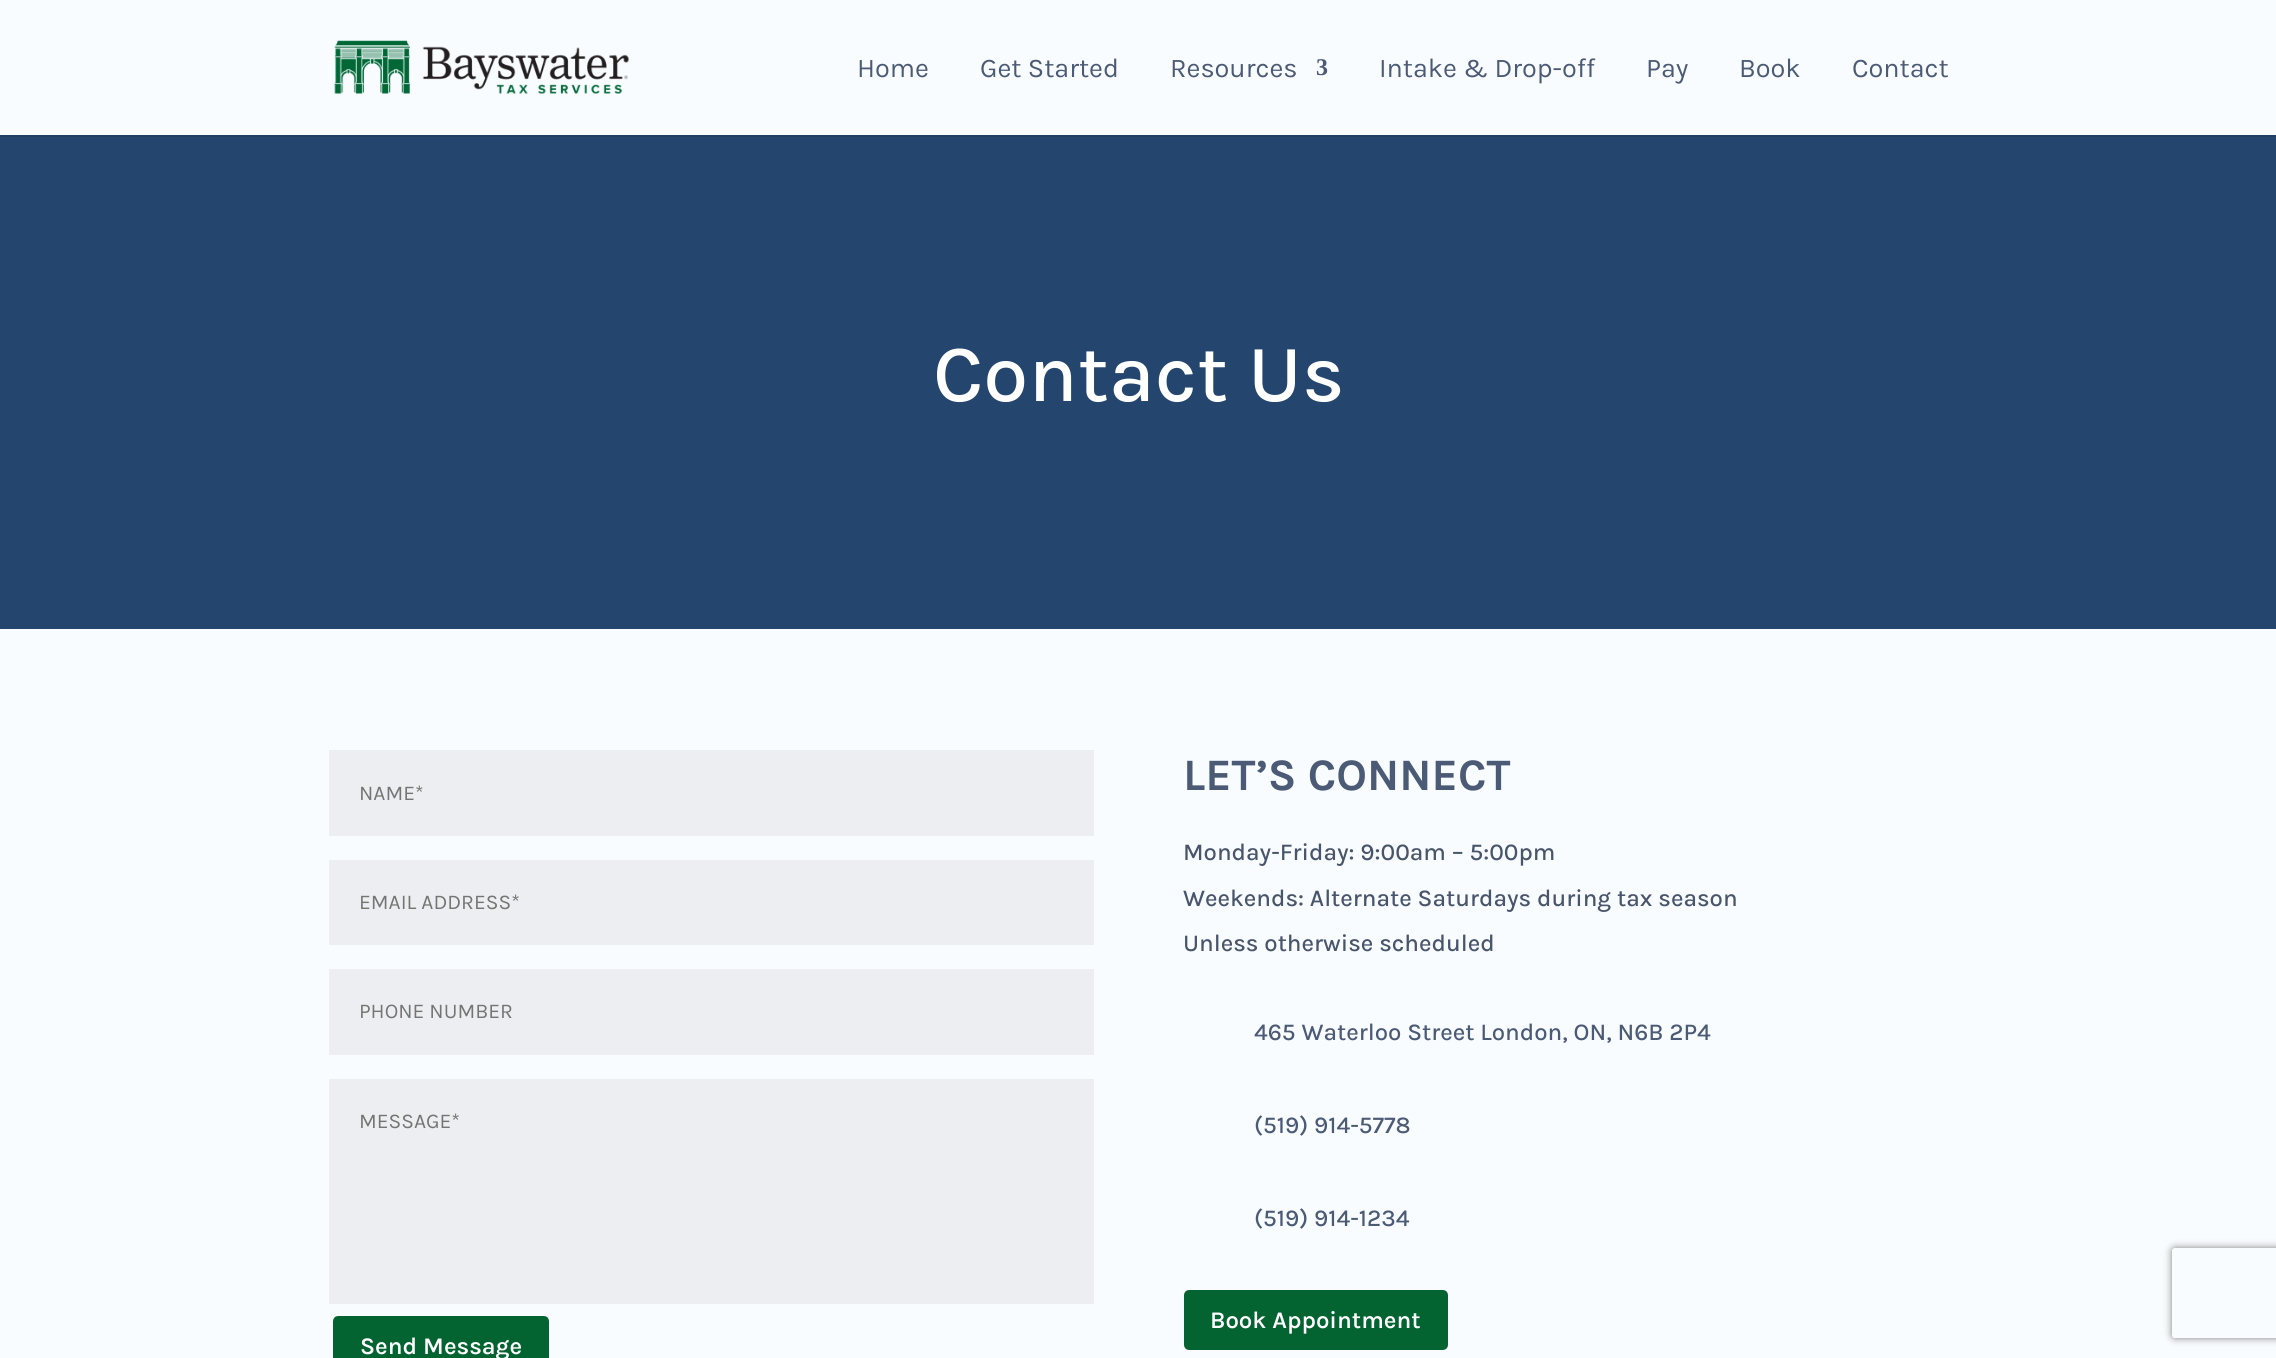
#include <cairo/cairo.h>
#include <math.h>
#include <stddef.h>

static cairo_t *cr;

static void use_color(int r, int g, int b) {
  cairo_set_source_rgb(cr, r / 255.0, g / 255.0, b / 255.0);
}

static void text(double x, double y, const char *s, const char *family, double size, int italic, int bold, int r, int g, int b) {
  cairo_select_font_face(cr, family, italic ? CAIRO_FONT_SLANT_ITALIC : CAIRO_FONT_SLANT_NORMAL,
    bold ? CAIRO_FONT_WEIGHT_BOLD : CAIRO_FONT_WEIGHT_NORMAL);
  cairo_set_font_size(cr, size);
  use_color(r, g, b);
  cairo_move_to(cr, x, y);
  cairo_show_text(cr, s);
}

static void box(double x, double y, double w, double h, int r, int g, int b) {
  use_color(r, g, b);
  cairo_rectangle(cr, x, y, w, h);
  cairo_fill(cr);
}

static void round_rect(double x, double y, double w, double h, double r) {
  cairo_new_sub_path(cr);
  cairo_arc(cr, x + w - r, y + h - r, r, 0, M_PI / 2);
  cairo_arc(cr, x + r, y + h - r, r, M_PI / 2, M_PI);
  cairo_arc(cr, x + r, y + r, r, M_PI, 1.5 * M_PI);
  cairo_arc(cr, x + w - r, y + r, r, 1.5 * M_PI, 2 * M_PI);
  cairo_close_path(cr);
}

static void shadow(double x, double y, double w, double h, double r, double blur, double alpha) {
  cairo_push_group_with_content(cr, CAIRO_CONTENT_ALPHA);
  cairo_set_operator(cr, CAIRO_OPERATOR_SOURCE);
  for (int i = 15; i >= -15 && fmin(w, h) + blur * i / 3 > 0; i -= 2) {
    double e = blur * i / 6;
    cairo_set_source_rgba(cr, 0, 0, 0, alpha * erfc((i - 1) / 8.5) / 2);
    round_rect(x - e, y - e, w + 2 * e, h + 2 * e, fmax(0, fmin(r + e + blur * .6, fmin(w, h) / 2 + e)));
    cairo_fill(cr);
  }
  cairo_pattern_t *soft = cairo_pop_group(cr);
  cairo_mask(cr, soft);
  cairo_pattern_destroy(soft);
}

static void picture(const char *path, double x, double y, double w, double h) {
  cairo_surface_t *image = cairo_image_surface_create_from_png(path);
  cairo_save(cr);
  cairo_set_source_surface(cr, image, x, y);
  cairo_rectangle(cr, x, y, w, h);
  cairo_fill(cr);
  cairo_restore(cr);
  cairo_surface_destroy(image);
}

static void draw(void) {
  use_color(36, 70, 110);
  cairo_paint(cr);
  box(0, 135, 2276, 2, 32, 63, 99);
  box(0, 0, 2276, 135, 249, 252, 255);
  picture("img_01.png", 334, 40, 295, 54);
  box(0, 629, 2276, 729, 249, 252, 255);
  box(329, 750, 765, 86, 236, 238, 241);
  box(329, 860, 765, 85, 236, 238, 241);
  box(329, 969, 765, 86, 236, 238, 241);
  box(329, 1079, 765, 225, 236, 238, 241);
  use_color(4, 100, 49);
  round_rect(334.5, 1317.5, 213, 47, 3.5);
  cairo_fill_preserve(cr);
  cairo_set_line_width(cr, 3);
  cairo_stroke(cr);
  round_rect(1185.5, 1291.5, 261, 57, 3.5);
  cairo_fill_preserve(cr);
  cairo_stroke(cr);
  cairo_save(cr);
  cairo_set_fill_rule(cr, CAIRO_FILL_RULE_EVEN_ODD);
  cairo_new_path(cr);
  cairo_move_to(cr, 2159, 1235);
  cairo_line_to(cr, 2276, 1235);
  cairo_line_to(cr, 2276, 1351);
  cairo_line_to(cr, 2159, 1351);
  cairo_close_path(cr);
  cairo_move_to(cr, 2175, 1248);
  cairo_line_to(cr, 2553, 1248);
  cairo_curve_to(cr, 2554.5, 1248, 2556, 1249.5, 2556, 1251);
  cairo_line_to(cr, 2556, 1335);
  cairo_curve_to(cr, 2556, 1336.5, 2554.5, 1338, 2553, 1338);
  cairo_line_to(cr, 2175, 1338);
  cairo_curve_to(cr, 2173.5, 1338, 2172, 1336.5, 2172, 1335);
  cairo_line_to(cr, 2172, 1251);
  cairo_curve_to(cr, 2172, 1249.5, 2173.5, 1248, 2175, 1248);
  cairo_close_path(cr);
  cairo_clip(cr);
  use_color(128, 128, 128);
  shadow(2172, 1248, 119, 90, 3, 4, 1);
  cairo_restore(cr);
  text(857, 77, "Home", "Karla", 27, 0, 0, 76, 91, 117);
  text(980, 77, "Get Started", "Karla", 27, 0, 0, 76, 91, 117);
  text(1170, 77, "Resources", "Karla", 27, 0, 0, 76, 91, 117);
  text(1316, 75, "3", "Liberation Serif", 24, 0, 1, 76, 91, 117);
  text(1379, 77, "Intake & Drop-off", "Karla", 27, 0, 0, 76, 91, 117);
  text(1646, 77, "Pay", "Karla", 27, 0, 0, 76, 91, 117);
  text(1739, 77, "Book", "Karla", 27, 0, 0, 76, 91, 117);
  text(1852, 77, "Contact", "Karla", 27, 0, 0, 76, 91, 117);
  text(933, 401, "Contact Us", "Karla Medium", 81, 0, 0, 255, 255, 255);
  text(359, 800, "NAME*", "Karla", 21, 0, 0, 117, 117, 117);
  text(359, 909, "EMAIL ADDRESS*", "Karla", 21, 0, 0, 117, 117, 117);
  text(359, 1018, "PHONE NUMBER", "Karla", 21, 0, 0, 117, 117, 117);
  text(359, 1128, "MESSAGE*", "Karla", 21, 0, 0, 117, 117, 117);
  text(360, 1354, "Send Message", "Karla SemiBold", 24, 0, 0, 255, 255, 255);
  text(1183, 790, "LET’S CONNECT", "Karla", 45, 0, 1, 76, 91, 117);
  text(1183, 860, "Monday-Friday: 9:00am – 5:00pm", "Karla Medium", 24, 0, 0, 73, 85, 107);
  text(1183, 906, "Weekends: Alternate Saturdays during tax season", "Karla Medium", 24, 0, 0, 73, 85, 107);
  text(1183, 951, "Unless otherwise scheduled", "Karla Medium", 24, 0, 0, 73, 85, 107);
  text(1254, 1040, "465 Waterloo Street London, ON, N6B 2P4", "Karla Medium", 24, 0, 0, 76, 91, 117);
  text(1254, 1133, "(519) 914-5778", "Karla Medium", 24, 0, 0, 76, 91, 117);
  text(1254, 1226, "(519) 914-1234", "Karla Medium", 24, 0, 0, 76, 91, 117);
  text(1210, 1328, "Book Appointment", "Karla SemiBold", 24, 0, 0, 255, 255, 255);
}

int main(void) {
  cairo_surface_t *surface = cairo_image_surface_create(CAIRO_FORMAT_RGB24, 2276, 1358);
  cr = cairo_create(surface);
  cairo_font_options_t *options = cairo_font_options_create();
  cairo_font_options_set_hint_metrics(options, CAIRO_HINT_METRICS_OFF);
  cairo_font_options_set_hint_style(options, CAIRO_HINT_STYLE_NONE);
  cairo_set_font_options(cr, options);
  cairo_set_miter_limit(cr, 4);
  draw();
  cairo_surface_write_to_png(surface, "out.png");
  cairo_font_options_destroy(options);
  cairo_destroy(cr);
  cairo_surface_destroy(surface);
  return 0;
}
